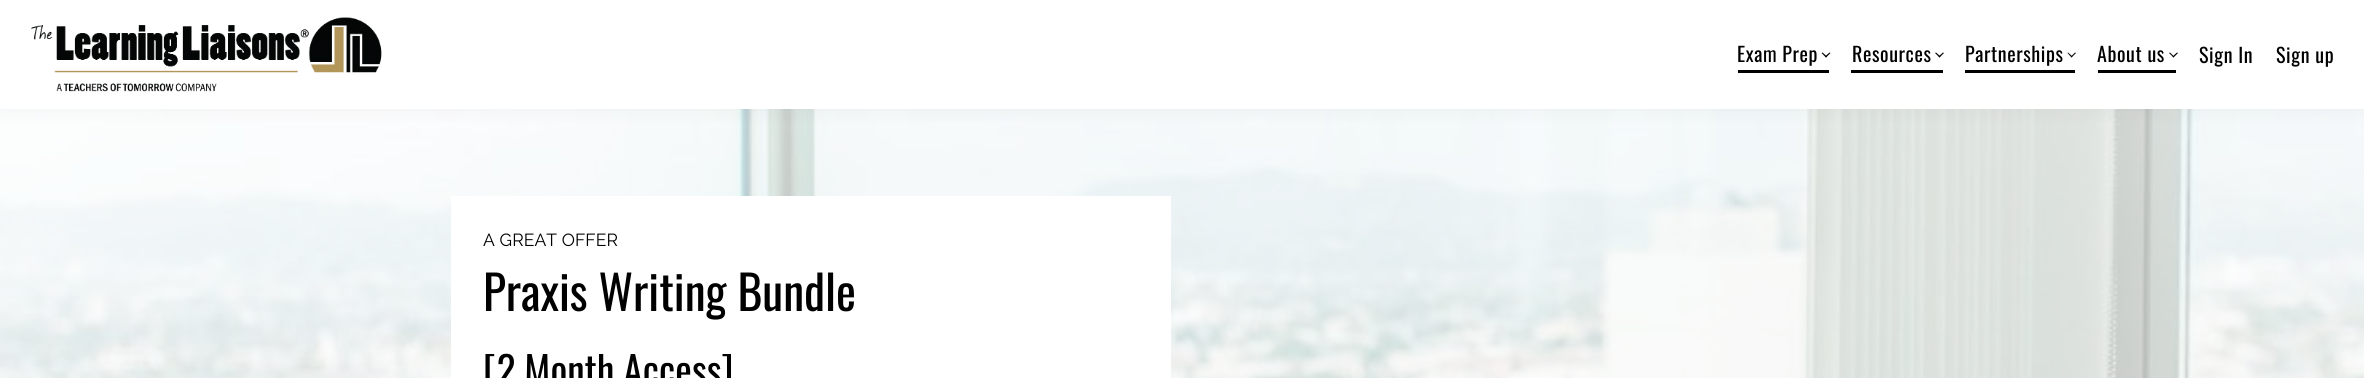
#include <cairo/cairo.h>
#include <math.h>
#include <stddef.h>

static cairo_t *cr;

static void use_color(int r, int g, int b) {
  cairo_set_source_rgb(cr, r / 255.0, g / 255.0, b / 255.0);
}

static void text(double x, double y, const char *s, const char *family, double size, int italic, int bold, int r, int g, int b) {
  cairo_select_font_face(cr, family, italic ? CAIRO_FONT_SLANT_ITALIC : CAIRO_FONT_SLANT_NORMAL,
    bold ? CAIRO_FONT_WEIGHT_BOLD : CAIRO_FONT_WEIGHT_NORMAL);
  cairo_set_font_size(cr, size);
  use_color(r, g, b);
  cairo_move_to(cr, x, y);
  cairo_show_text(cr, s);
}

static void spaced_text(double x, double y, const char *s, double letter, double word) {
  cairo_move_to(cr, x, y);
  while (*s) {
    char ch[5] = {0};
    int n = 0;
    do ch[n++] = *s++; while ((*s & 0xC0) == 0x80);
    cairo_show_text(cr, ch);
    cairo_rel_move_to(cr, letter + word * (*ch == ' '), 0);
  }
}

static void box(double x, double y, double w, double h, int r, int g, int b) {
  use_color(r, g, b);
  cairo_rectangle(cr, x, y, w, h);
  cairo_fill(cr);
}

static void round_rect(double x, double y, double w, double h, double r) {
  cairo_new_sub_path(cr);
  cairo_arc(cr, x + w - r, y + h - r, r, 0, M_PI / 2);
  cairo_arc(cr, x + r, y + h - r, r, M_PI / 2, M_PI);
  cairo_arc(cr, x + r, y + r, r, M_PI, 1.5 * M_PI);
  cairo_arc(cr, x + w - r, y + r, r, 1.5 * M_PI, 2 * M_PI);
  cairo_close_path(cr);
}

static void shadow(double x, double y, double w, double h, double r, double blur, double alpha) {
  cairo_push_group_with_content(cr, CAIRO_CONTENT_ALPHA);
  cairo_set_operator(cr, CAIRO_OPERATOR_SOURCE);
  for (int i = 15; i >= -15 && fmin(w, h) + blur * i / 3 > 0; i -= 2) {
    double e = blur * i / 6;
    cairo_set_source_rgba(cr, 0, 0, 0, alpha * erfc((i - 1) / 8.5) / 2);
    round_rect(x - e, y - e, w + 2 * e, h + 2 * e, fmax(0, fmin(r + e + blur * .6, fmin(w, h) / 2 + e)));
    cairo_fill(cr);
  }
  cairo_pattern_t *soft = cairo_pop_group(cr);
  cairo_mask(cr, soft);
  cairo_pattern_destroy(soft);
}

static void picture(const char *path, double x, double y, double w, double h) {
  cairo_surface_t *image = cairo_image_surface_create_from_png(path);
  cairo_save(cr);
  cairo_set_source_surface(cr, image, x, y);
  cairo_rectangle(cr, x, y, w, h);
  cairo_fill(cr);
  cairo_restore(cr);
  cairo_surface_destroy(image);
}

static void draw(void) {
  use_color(255, 255, 255);
  cairo_paint(cr);
  picture("img_02.png", 0, 109, 2364, 269);
  use_color(0, 0, 0);
  shadow(0, 0, 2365, 109, 0, 9.5, 0.05);
  box(0, 0, 2364, 109, 255, 255, 255);
  picture("img_01.png", 31, 17, 351, 75);
  box(1738, 70, 91, 3, 0, 0, 0);
  cairo_new_path(cr);
  cairo_move_to(cr, 1830.5, 53);
  cairo_line_to(cr, 1826, 57.5);
  cairo_line_to(cr, 1825, 56.5);
  cairo_line_to(cr, 1829.5, 52.5);
  cairo_close_path(cr);
  cairo_fill(cr);
  cairo_new_path(cr);
  cairo_move_to(cr, 1827, 56.5);
  cairo_line_to(cr, 1826, 57.5);
  cairo_line_to(cr, 1821.5, 53);
  cairo_line_to(cr, 1822.5, 52.5);
  cairo_close_path(cr);
  cairo_fill(cr);
  box(1851, 70, 92, 3, 0, 0, 0);
  cairo_new_path(cr);
  cairo_move_to(cr, 1944, 53);
  cairo_line_to(cr, 1939.5, 57.5);
  cairo_line_to(cr, 1938.5, 56.5);
  cairo_line_to(cr, 1943, 52.5);
  cairo_close_path(cr);
  cairo_fill(cr);
  cairo_new_path(cr);
  cairo_move_to(cr, 1940.5, 56.5);
  cairo_line_to(cr, 1939.5, 57.5);
  cairo_line_to(cr, 1935, 53);
  cairo_line_to(cr, 1936, 52.5);
  cairo_close_path(cr);
  cairo_fill(cr);
  box(1965, 70, 110, 3, 0, 0, 0);
  cairo_new_path(cr);
  cairo_move_to(cr, 2076, 53);
  cairo_line_to(cr, 2071.5, 57.5);
  cairo_line_to(cr, 2071, 56.5);
  cairo_line_to(cr, 2075, 52.5);
  cairo_close_path(cr);
  cairo_fill(cr);
  cairo_new_path(cr);
  cairo_move_to(cr, 2072.5, 56.5);
  cairo_line_to(cr, 2071.5, 57.5);
  cairo_line_to(cr, 2067.5, 53);
  cairo_line_to(cr, 2068, 52.5);
  cairo_close_path(cr);
  cairo_fill(cr);
  box(2098, 70, 78, 3, 0, 0, 0);
  cairo_new_path(cr);
  cairo_move_to(cr, 2178, 53);
  cairo_line_to(cr, 2173.5, 57.5);
  cairo_line_to(cr, 2172.5, 56.5);
  cairo_line_to(cr, 2177, 52.5);
  cairo_close_path(cr);
  cairo_fill(cr);
  cairo_new_path(cr);
  cairo_move_to(cr, 2174, 56.5);
  cairo_line_to(cr, 2173.5, 57.5);
  cairo_line_to(cr, 2169, 53);
  cairo_line_to(cr, 2170, 52.5);
  cairo_close_path(cr);
  cairo_fill(cr);
  box(451, 196, 720, 182, 255, 255, 255);
  cairo_select_font_face(cr, "Oswald", CAIRO_FONT_SLANT_NORMAL, CAIRO_FONT_WEIGHT_NORMAL);
  cairo_set_font_size(cr, 20);
  use_color(0, 0, 0);
  spaced_text(1737, 62, "Exam Prep", 0.6, 0);
  spaced_text(1852, 62, "Resources", 0.6, 0);
  spaced_text(1965, 62, "Partnerships", 0.6, 0);
  spaced_text(2097, 62, "About us", 0.6, 0);
  spaced_text(2199, 63, "Sign In", 0.6, 0);
  spaced_text(2276, 63, "Sign up", 0.6, 0);
  cairo_select_font_face(cr, "Raleway", CAIRO_FONT_SLANT_NORMAL, CAIRO_FONT_WEIGHT_NORMAL);
  cairo_set_font_size(cr, 17.5);
  spaced_text(483, 246, "A GREAT OFFER", 0.1, 0);
  text(483, 311, "Praxis Writing Bundle", "Oswald", 47.5, 0, 0, 0, 0, 0);
  text(483, 386, "[2 Month Access]", "Oswald", 39.5, 0, 0, 0, 0, 0);
}

int main(void) {
  cairo_surface_t *surface = cairo_image_surface_create(CAIRO_FORMAT_RGB24, 2364, 378);
  cr = cairo_create(surface);
  cairo_font_options_t *options = cairo_font_options_create();
  cairo_font_options_set_hint_metrics(options, CAIRO_HINT_METRICS_OFF);
  cairo_font_options_set_hint_style(options, CAIRO_HINT_STYLE_NONE);
  cairo_set_font_options(cr, options);
  cairo_set_miter_limit(cr, 4);
  draw();
  cairo_surface_write_to_png(surface, "out.png");
  cairo_font_options_destroy(options);
  cairo_destroy(cr);
  cairo_surface_destroy(surface);
  return 0;
}
